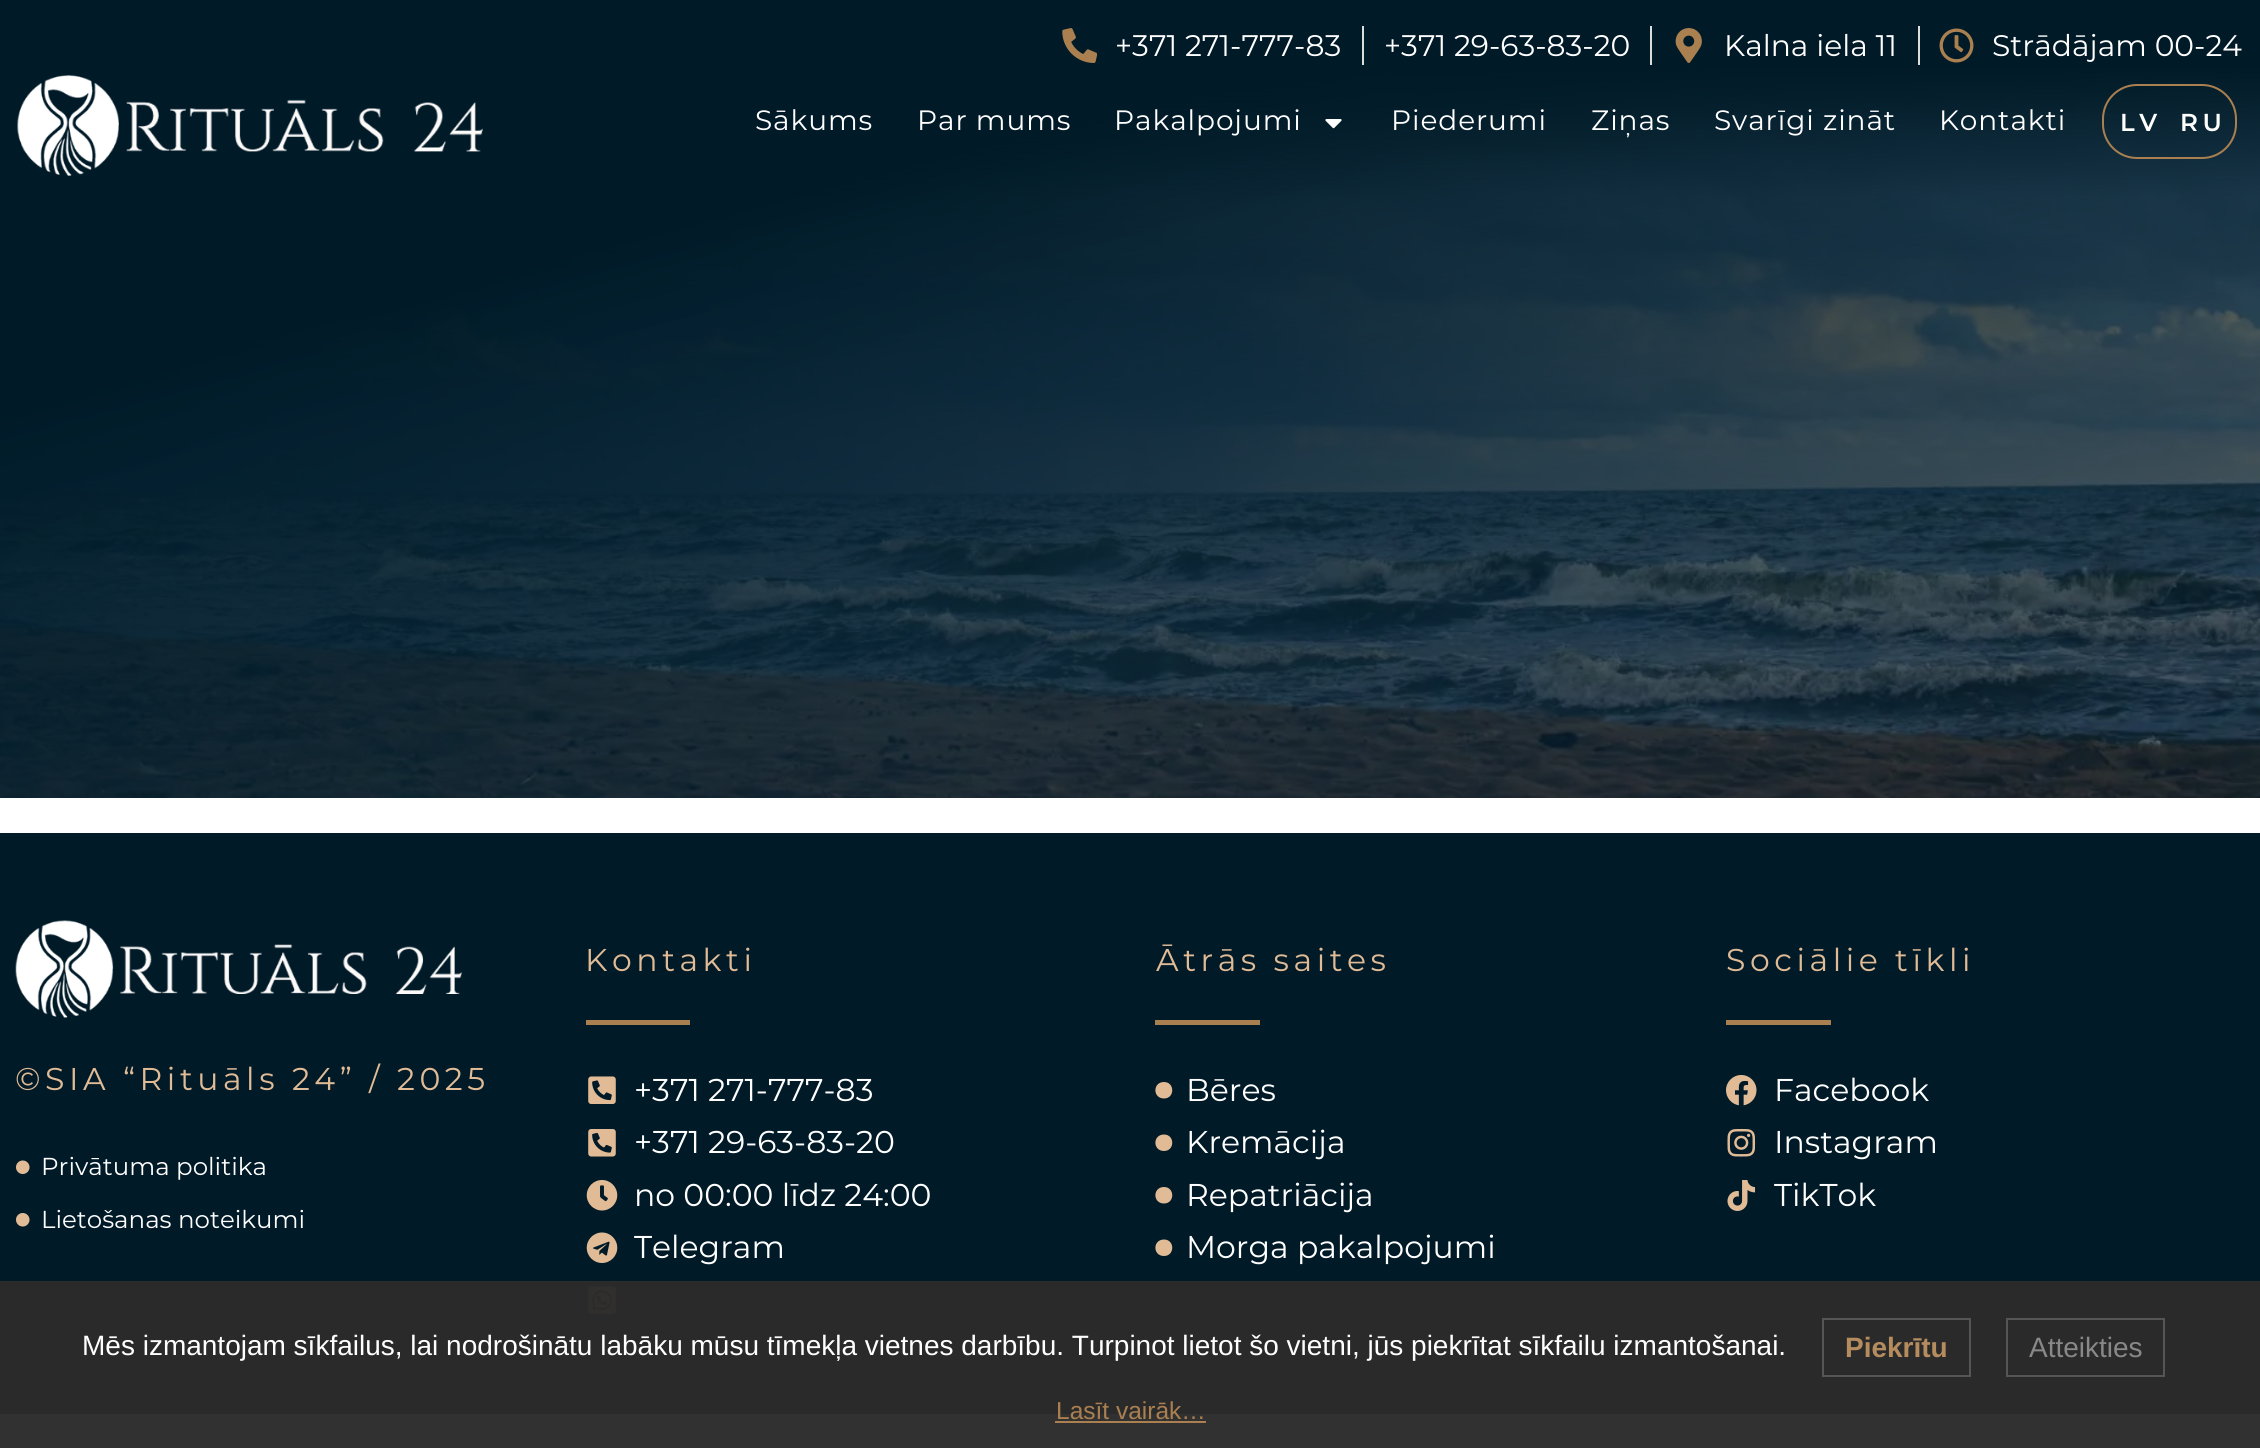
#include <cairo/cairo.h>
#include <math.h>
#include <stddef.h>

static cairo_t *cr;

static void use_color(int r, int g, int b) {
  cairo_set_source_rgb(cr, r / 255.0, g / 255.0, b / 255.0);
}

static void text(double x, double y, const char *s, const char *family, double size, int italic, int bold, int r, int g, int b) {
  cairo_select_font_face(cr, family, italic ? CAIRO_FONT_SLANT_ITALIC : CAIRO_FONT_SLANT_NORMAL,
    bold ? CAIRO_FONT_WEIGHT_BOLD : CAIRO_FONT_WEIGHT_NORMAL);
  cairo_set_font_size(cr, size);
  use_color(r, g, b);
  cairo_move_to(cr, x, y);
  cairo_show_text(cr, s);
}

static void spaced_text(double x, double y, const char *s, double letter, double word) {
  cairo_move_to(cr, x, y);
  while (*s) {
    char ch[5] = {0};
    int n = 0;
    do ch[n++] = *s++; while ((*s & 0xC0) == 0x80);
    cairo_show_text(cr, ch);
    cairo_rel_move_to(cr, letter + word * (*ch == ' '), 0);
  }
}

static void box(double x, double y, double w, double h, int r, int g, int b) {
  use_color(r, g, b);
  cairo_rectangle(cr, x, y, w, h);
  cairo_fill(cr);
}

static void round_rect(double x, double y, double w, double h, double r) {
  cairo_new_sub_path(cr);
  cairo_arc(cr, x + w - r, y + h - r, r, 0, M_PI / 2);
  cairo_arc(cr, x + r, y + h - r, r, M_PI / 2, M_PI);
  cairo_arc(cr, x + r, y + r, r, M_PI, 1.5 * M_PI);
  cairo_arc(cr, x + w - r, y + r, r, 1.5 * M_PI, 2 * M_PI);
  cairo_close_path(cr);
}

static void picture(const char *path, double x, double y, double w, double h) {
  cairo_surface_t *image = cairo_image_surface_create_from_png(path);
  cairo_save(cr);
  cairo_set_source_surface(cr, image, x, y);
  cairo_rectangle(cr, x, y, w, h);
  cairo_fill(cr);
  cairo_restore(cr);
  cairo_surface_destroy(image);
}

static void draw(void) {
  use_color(255, 255, 255);
  cairo_paint(cr);
  box(0, 1414, 2260, 34, 49, 49, 49);
  picture("img_01.png", 0, 0, 2260, 798);
  picture("img_02.png", 17, 75, 466, 101);
  picture("img_03.png", 1062, 28, 35, 35);
  box(1362, 26, 2, 39, 221, 221, 221);
  box(1650, 26, 2, 39, 221, 221, 221);
  picture("img_04.png", 1675, 28, 27, 35);
  box(1918, 26, 2, 39, 221, 221, 221);
  picture("img_05.png", 1939, 28, 35, 35);
  picture("img_06.png", 1325, 119, 17, 10);
  round_rect(2103, 85, 133, 73, 34);
  use_color(170, 128, 80);
  cairo_stroke(cr);
  box(0, 833, 2260, 448, 0, 26, 39);
  box(0, 1283, 2260, 131, 42, 42, 43);
  picture("img_07.png", 15, 920, 447, 98);
  picture("img_08.png", 16, 1160, 14, 14);
  picture("img_09.png", 16, 1213, 14, 14);
  box(586, 1020, 104, 5, 170, 128, 80);
  picture("img_10.png", 588, 1076, 28, 28);
  picture("img_11.png", 588, 1129, 28, 28);
  picture("img_12.png", 586, 1180, 32, 31);
  picture("img_13.png", 586, 1232, 32, 31);
  picture("img_14.png", 588, 1286, 28, 28);
  box(1155, 1020, 105, 5, 170, 128, 80);
  use_color(224, 187, 150);
  cairo_new_path(cr);
  cairo_move_to(cr, 1164, 1082);
  cairo_curve_to(cr, 1152.5, 1082, 1152.5, 1098.5, 1164, 1098.5);
  cairo_curve_to(cr, 1175, 1098.5, 1175, 1082, 1164, 1082);
  cairo_close_path(cr);
  cairo_fill(cr);
  cairo_new_path(cr);
  cairo_move_to(cr, 1164, 1134.5);
  cairo_curve_to(cr, 1152.5, 1134.5, 1152.5, 1151, 1164, 1151);
  cairo_curve_to(cr, 1175, 1151, 1175, 1134.5, 1164, 1134.5);
  cairo_close_path(cr);
  cairo_fill(cr);
  cairo_new_path(cr);
  cairo_move_to(cr, 1164, 1187);
  cairo_curve_to(cr, 1152.5, 1187, 1152.5, 1203.5, 1164, 1203.5);
  cairo_curve_to(cr, 1175, 1203.5, 1175, 1187, 1164, 1187);
  cairo_close_path(cr);
  cairo_fill(cr);
  cairo_new_path(cr);
  cairo_move_to(cr, 1164, 1239.5);
  cairo_curve_to(cr, 1152.5, 1239.5, 1152.5, 1256, 1164, 1256);
  cairo_curve_to(cr, 1175, 1256, 1175, 1239.5, 1164, 1239.5);
  cairo_close_path(cr);
  cairo_fill(cr);
  box(1726, 1020, 105, 5, 170, 128, 80);
  picture("img_15.png", 1726, 1075, 31, 31);
  picture("img_16.png", 1727, 1128, 29, 29);
  picture("img_17.png", 1727, 1180, 29, 31);
  box(0, 1281, 2260, 2, 43, 43, 43);
  cairo_rectangle(cr, 1823, 1319, 147, 57);
  use_color(85, 85, 85);
  cairo_stroke(cr);
  cairo_rectangle(cr, 2007, 1319, 157, 57);
  cairo_stroke(cr);
  box(1055, 1421, 151, 2, 170, 128, 80);
  text(1115, 56, "+371 271-777-83", "Montserrat", 29.75, 0, 0, 255, 255, 255);
  text(1384, 56, "+371 29-63-83-20", "Montserrat", 29.75, 0, 0, 255, 255, 255);
  text(1724, 56, "Kalna iela 11", "Montserrat", 29.75, 0, 0, 255, 255, 255);
  text(1992, 56, "Strādājam 00-24", "Montserrat", 29.75, 0, 0, 255, 255, 255);
  cairo_set_font_size(cr, 28);
  spaced_text(755, 130, "Sākums", 0.9, 0);
  spaced_text(917, 130, "Par mums", 0.9, 0);
  spaced_text(1114, 130, "Pakalpojumi", 0.9, 0);
  spaced_text(1391, 130, "Piederumi", 0.9, 0);
  spaced_text(1591, 130, "Ziņas", 0.9, 0);
  spaced_text(1714, 130, "Svarīgi zināt", 0.9, 0);
  spaced_text(1939, 130, "Kontakti", 0.9, 0);
  cairo_select_font_face(cr, "Montserrat SemiBold", CAIRO_FONT_SLANT_NORMAL, CAIRO_FONT_WEIGHT_NORMAL);
  cairo_set_font_size(cr, 24.5);
  spaced_text(2120, 131, "LV", 4.55, 0);
  spaced_text(2180, 131, "RU", 4.55, 0);
  cairo_select_font_face(cr, "Montserrat", CAIRO_FONT_SLANT_NORMAL, CAIRO_FONT_WEIGHT_NORMAL);
  cairo_set_font_size(cr, 31.5);
  use_color(224, 187, 150);
  spaced_text(15, 1090, "©SIA “Rituāls 24” / 2025", 4.55, 0);
  text(41, 1175, "Privātuma politika", "Montserrat", 24.5, 0, 0, 255, 255, 255);
  text(41, 1228, "Lietošanas noteikumi", "Montserrat", 24.5, 0, 0, 255, 255, 255);
  cairo_set_font_size(cr, 31.5);
  use_color(224, 187, 150);
  spaced_text(585, 971, "Kontakti", 4.55, 0);
  text(634, 1101, "+371 271-777-83", "Montserrat", 31.5, 0, 0, 255, 255, 255);
  text(634, 1153, "+371 29-63-83-20", "Montserrat", 31.5, 0, 0, 255, 255, 255);
  text(634, 1206, "no 00:00 līdz 24:00", "Montserrat", 31.5, 0, 0, 255, 255, 255);
  text(634, 1258, "Telegram", "Montserrat", 31.5, 0, 0, 255, 255, 255);
  use_color(224, 187, 150);
  spaced_text(1156, 971, "Ātrās saites", 4.55, 0);
  text(1186, 1101, "Bēres", "Montserrat", 31.5, 0, 0, 255, 255, 255);
  text(1186, 1153, "Kremācija", "Montserrat", 31.5, 0, 0, 255, 255, 255);
  text(1186, 1206, "Repatriācija", "Montserrat", 31.5, 0, 0, 255, 255, 255);
  text(1186, 1258, "Morga pakalpojumi", "Montserrat", 31.5, 0, 0, 255, 255, 255);
  use_color(224, 187, 150);
  spaced_text(1726, 971, "Sociālie tīkli", 4.55, 0);
  text(1774, 1101, "Facebook", "Montserrat", 31.5, 0, 0, 255, 255, 255);
  text(1774, 1153, "Instagram", "Montserrat", 31.5, 0, 0, 255, 255, 255);
  text(1774, 1206, "TikTok", "Montserrat", 31.5, 0, 0, 255, 255, 255);
  text(82, 1355, "Mēs izmantojam sīkfailus, lai nodrošinātu labāku mūsu tīmekļa vietnes darbību. Turpinot lietot šo vietni, jūs piekrītat sīkfailu izmantošanai.", "Liberation Sans", 28, 0, 0, 255, 255, 255);
  text(1845, 1357, "Piekrītu", "Liberation Sans", 28, 0, 1, 181, 140, 94);
  text(2029, 1357, "Atteikties", "Liberation Sans", 28, 0, 0, 136, 136, 136);
  text(1056, 1419, "Lasīt vairāk…", "Liberation Sans", 24.5, 0, 0, 170, 128, 80);
}

int main(void) {
  cairo_surface_t *surface = cairo_image_surface_create(CAIRO_FORMAT_RGB24, 2260, 1448);
  cr = cairo_create(surface);
  cairo_font_options_t *options = cairo_font_options_create();
  cairo_font_options_set_hint_metrics(options, CAIRO_HINT_METRICS_OFF);
  cairo_font_options_set_hint_style(options, CAIRO_HINT_STYLE_NONE);
  cairo_set_font_options(cr, options);
  cairo_set_miter_limit(cr, 4);
  draw();
  cairo_surface_write_to_png(surface, "out.png");
  cairo_font_options_destroy(options);
  cairo_destroy(cr);
  cairo_surface_destroy(surface);
  return 0;
}
